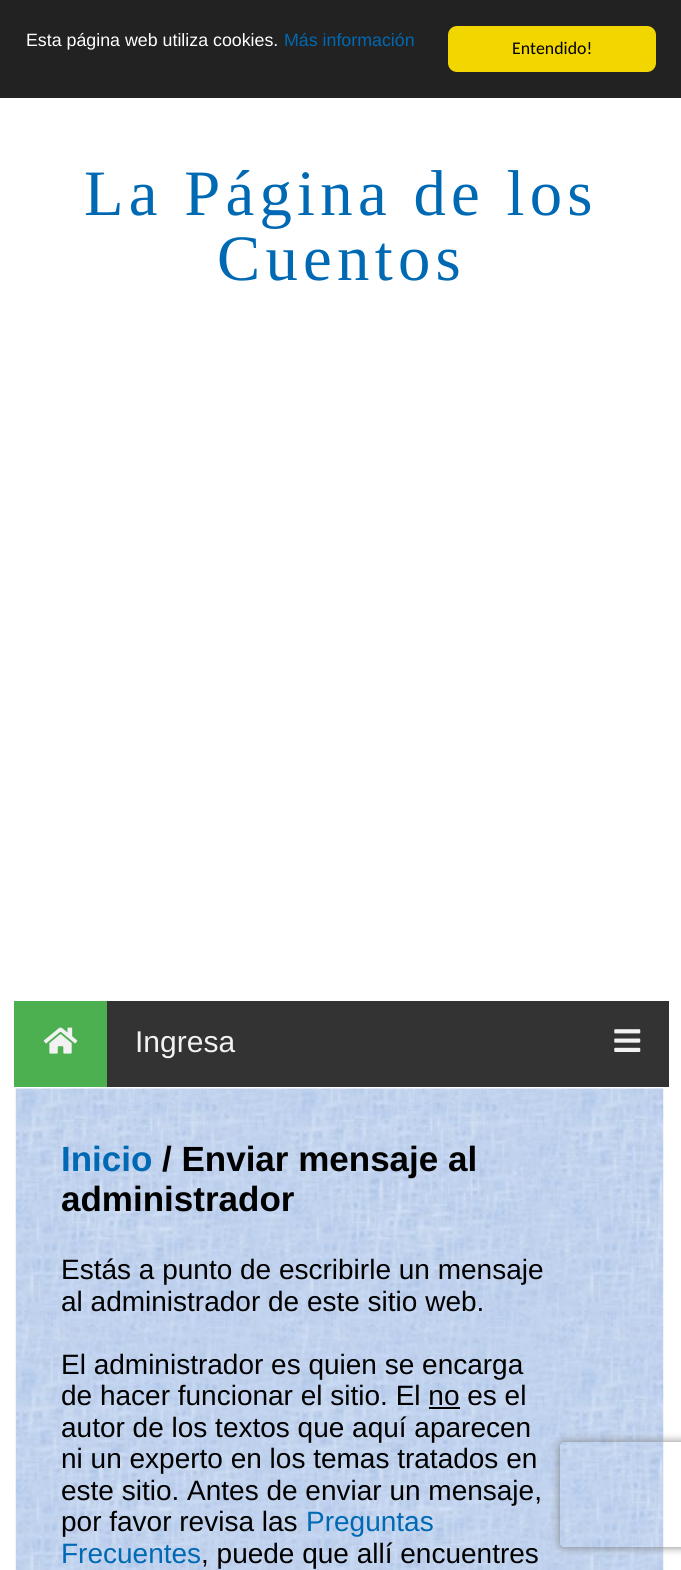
#include <cairo/cairo.h>
#include <math.h>
#include <stddef.h>

static cairo_t *cr;

static void use_color(int r, int g, int b) {
  cairo_set_source_rgb(cr, r / 255.0, g / 255.0, b / 255.0);
}

static void text(double x, double y, const char *s, const char *family, double size, int italic, int bold, int r, int g, int b) {
  cairo_select_font_face(cr, family, italic ? CAIRO_FONT_SLANT_ITALIC : CAIRO_FONT_SLANT_NORMAL,
    bold ? CAIRO_FONT_WEIGHT_BOLD : CAIRO_FONT_WEIGHT_NORMAL);
  cairo_set_font_size(cr, size);
  use_color(r, g, b);
  cairo_move_to(cr, x, y);
  cairo_show_text(cr, s);
}

static void spaced_text(double x, double y, const char *s, double letter, double word) {
  cairo_move_to(cr, x, y);
  while (*s) {
    char ch[5] = {0};
    int n = 0;
    do ch[n++] = *s++; while ((*s & 0xC0) == 0x80);
    cairo_show_text(cr, ch);
    cairo_rel_move_to(cr, letter + word * (*ch == ' '), 0);
  }
}

static void box(double x, double y, double w, double h, int r, int g, int b) {
  use_color(r, g, b);
  cairo_rectangle(cr, x, y, w, h);
  cairo_fill(cr);
}

static void round_rect(double x, double y, double w, double h, double r) {
  cairo_new_sub_path(cr);
  cairo_arc(cr, x + w - r, y + h - r, r, 0, M_PI / 2);
  cairo_arc(cr, x + r, y + h - r, r, M_PI / 2, M_PI);
  cairo_arc(cr, x + r, y + r, r, M_PI, 1.5 * M_PI);
  cairo_arc(cr, x + w - r, y + r, r, 1.5 * M_PI, 2 * M_PI);
  cairo_close_path(cr);
}

static void shadow(double x, double y, double w, double h, double r, double blur, double alpha) {
  cairo_push_group_with_content(cr, CAIRO_CONTENT_ALPHA);
  cairo_set_operator(cr, CAIRO_OPERATOR_SOURCE);
  for (int i = 15; i >= -15 && fmin(w, h) + blur * i / 3 > 0; i -= 2) {
    double e = blur * i / 6;
    cairo_set_source_rgba(cr, 0, 0, 0, alpha * erfc((i - 1) / 8.5) / 2);
    round_rect(x - e, y - e, w + 2 * e, h + 2 * e, fmax(0, fmin(r + e + blur * .6, fmin(w, h) / 2 + e)));
    cairo_fill(cr);
  }
  cairo_pattern_t *soft = cairo_pop_group(cr);
  cairo_mask(cr, soft);
  cairo_pattern_destroy(soft);
}

static void picture(const char *path, double x, double y, double w, double h) {
  cairo_surface_t *image = cairo_image_surface_create_from_png(path);
  cairo_save(cr);
  cairo_set_source_surface(cr, image, x, y);
  cairo_rectangle(cr, x, y, w, h);
  cairo_fill(cr);
  cairo_restore(cr);
  cairo_surface_destroy(image);
}

static void draw(void) {
  use_color(255, 255, 255);
  cairo_paint(cr);
  box(0, 0, 681, 98, 34, 34, 34);
  use_color(241, 214, 0);
  round_rect(448, 26, 208, 46, 9);
  cairo_fill(cr);
  box(107, 1001, 562, 86, 51, 51, 51);
  box(14, 1001, 93, 86, 76, 175, 80);
  picture("img_01.png", 43, 1027, 35, 27);
  picture("img_02.png", 614, 1029, 27, 23);
  picture("img_03.png", 15, 1088, 649, 482);
  box(429, 1407, 31, 2, 0, 0, 0);
  cairo_save(cr);
  cairo_set_fill_rule(cr, CAIRO_FILL_RULE_EVEN_ODD);
  cairo_new_path(cr);
  cairo_move_to(cr, 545, 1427);
  cairo_line_to(cr, 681, 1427);
  cairo_line_to(cr, 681, 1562);
  cairo_line_to(cr, 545, 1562);
  cairo_close_path(cr);
  cairo_move_to(cr, 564, 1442);
  cairo_line_to(cr, 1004, 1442);
  cairo_curve_to(cr, 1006, 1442, 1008, 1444, 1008, 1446);
  cairo_line_to(cr, 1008, 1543);
  cairo_curve_to(cr, 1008, 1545, 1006, 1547, 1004, 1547);
  cairo_line_to(cr, 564, 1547);
  cairo_curve_to(cr, 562, 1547, 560, 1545, 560, 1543);
  cairo_line_to(cr, 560, 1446);
  cairo_curve_to(cr, 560, 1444, 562, 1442, 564, 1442);
  cairo_close_path(cr);
  cairo_clip(cr);
  use_color(128, 128, 128);
  shadow(560, 1442, 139, 105, 4, 4.5, 1);
  cairo_restore(cr);
  text(26, 46, "Esta página web utiliza cookies.", "Liberation Sans", 17.8, 0, 0, 255, 255, 255);
  text(284, 46, "Más información", "Liberation Sans", 17.8, 0, 0, 0, 105, 179);
  text(512, 54, "Entendido!", "Carlito", 17.8, 0, 0, 0, 0, 0);
  cairo_select_font_face(cr, "Liberation Serif", CAIRO_FONT_SLANT_NORMAL, CAIRO_FONT_WEIGHT_NORMAL);
  cairo_set_font_size(cr, 64.75);
  use_color(0, 105, 179);
  spaced_text(84, 215, "La Página de los", 5.25, 0);
  spaced_text(217, 280, "Cuentos", 5.25, 0);
  text(135, 1052, "Ingresa", "Liberation Sans", 30, 0, 0, 242, 242, 242);
  text(61, 1171, "Inicio", "Liberation Sans", 35, 0, 1, 0, 105, 179);
  text(162, 1171, "/ Enviar mensaje al", "Liberation Sans", 35, 0, 1, 0, 0, 0);
  text(61, 1211, "administrador", "Liberation Sans", 35, 0, 1, 0, 0, 0);
  text(61, 1279, "Estás a punto de escribirle un mensaje", "Liberation Sans", 28, 0, 0, 0, 0, 0);
  text(61, 1311, "al administrador de este sitio web.", "Liberation Sans", 28, 0, 0, 0, 0, 0);
  text(61, 1374, "El administrador es quien se encarga", "Liberation Sans", 28, 0, 0, 0, 0, 0);
  text(61, 1405, "de hacer funcionar el sitio. El no es el", "Liberation Sans", 28, 0, 0, 0, 0, 0);
  text(61, 1437, "autor de los textos que aquí aparecen", "Liberation Sans", 28, 0, 0, 0, 0, 0);
  text(61, 1468, "ni un experto en los temas tratados en", "Liberation Sans", 28, 0, 0, 0, 0, 0);
  text(61, 1500, "este sitio. Antes de enviar un mensaje,", "Liberation Sans", 28, 0, 0, 0, 0, 0);
  text(61, 1531, "por favor revisa las", "Liberation Sans", 28, 0, 0, 0, 0, 0);
  text(306, 1531, "Preguntas", "Liberation Sans", 28, 0, 0, 0, 105, 179);
  text(61, 1563, "Frecuentes", "Liberation Sans", 28, 0, 0, 0, 105, 179);
  text(201, 1563, ", puede que allí encuentres", "Liberation Sans", 28, 0, 0, 0, 0, 0);
}

int main(void) {
  cairo_surface_t *surface = cairo_image_surface_create(CAIRO_FORMAT_RGB24, 681, 1570);
  cr = cairo_create(surface);
  cairo_font_options_t *options = cairo_font_options_create();
  cairo_font_options_set_hint_metrics(options, CAIRO_HINT_METRICS_OFF);
  cairo_font_options_set_hint_style(options, CAIRO_HINT_STYLE_NONE);
  cairo_set_font_options(cr, options);
  cairo_set_miter_limit(cr, 4);
  draw();
  cairo_surface_write_to_png(surface, "out.png");
  cairo_font_options_destroy(options);
  cairo_destroy(cr);
  cairo_surface_destroy(surface);
  return 0;
}
